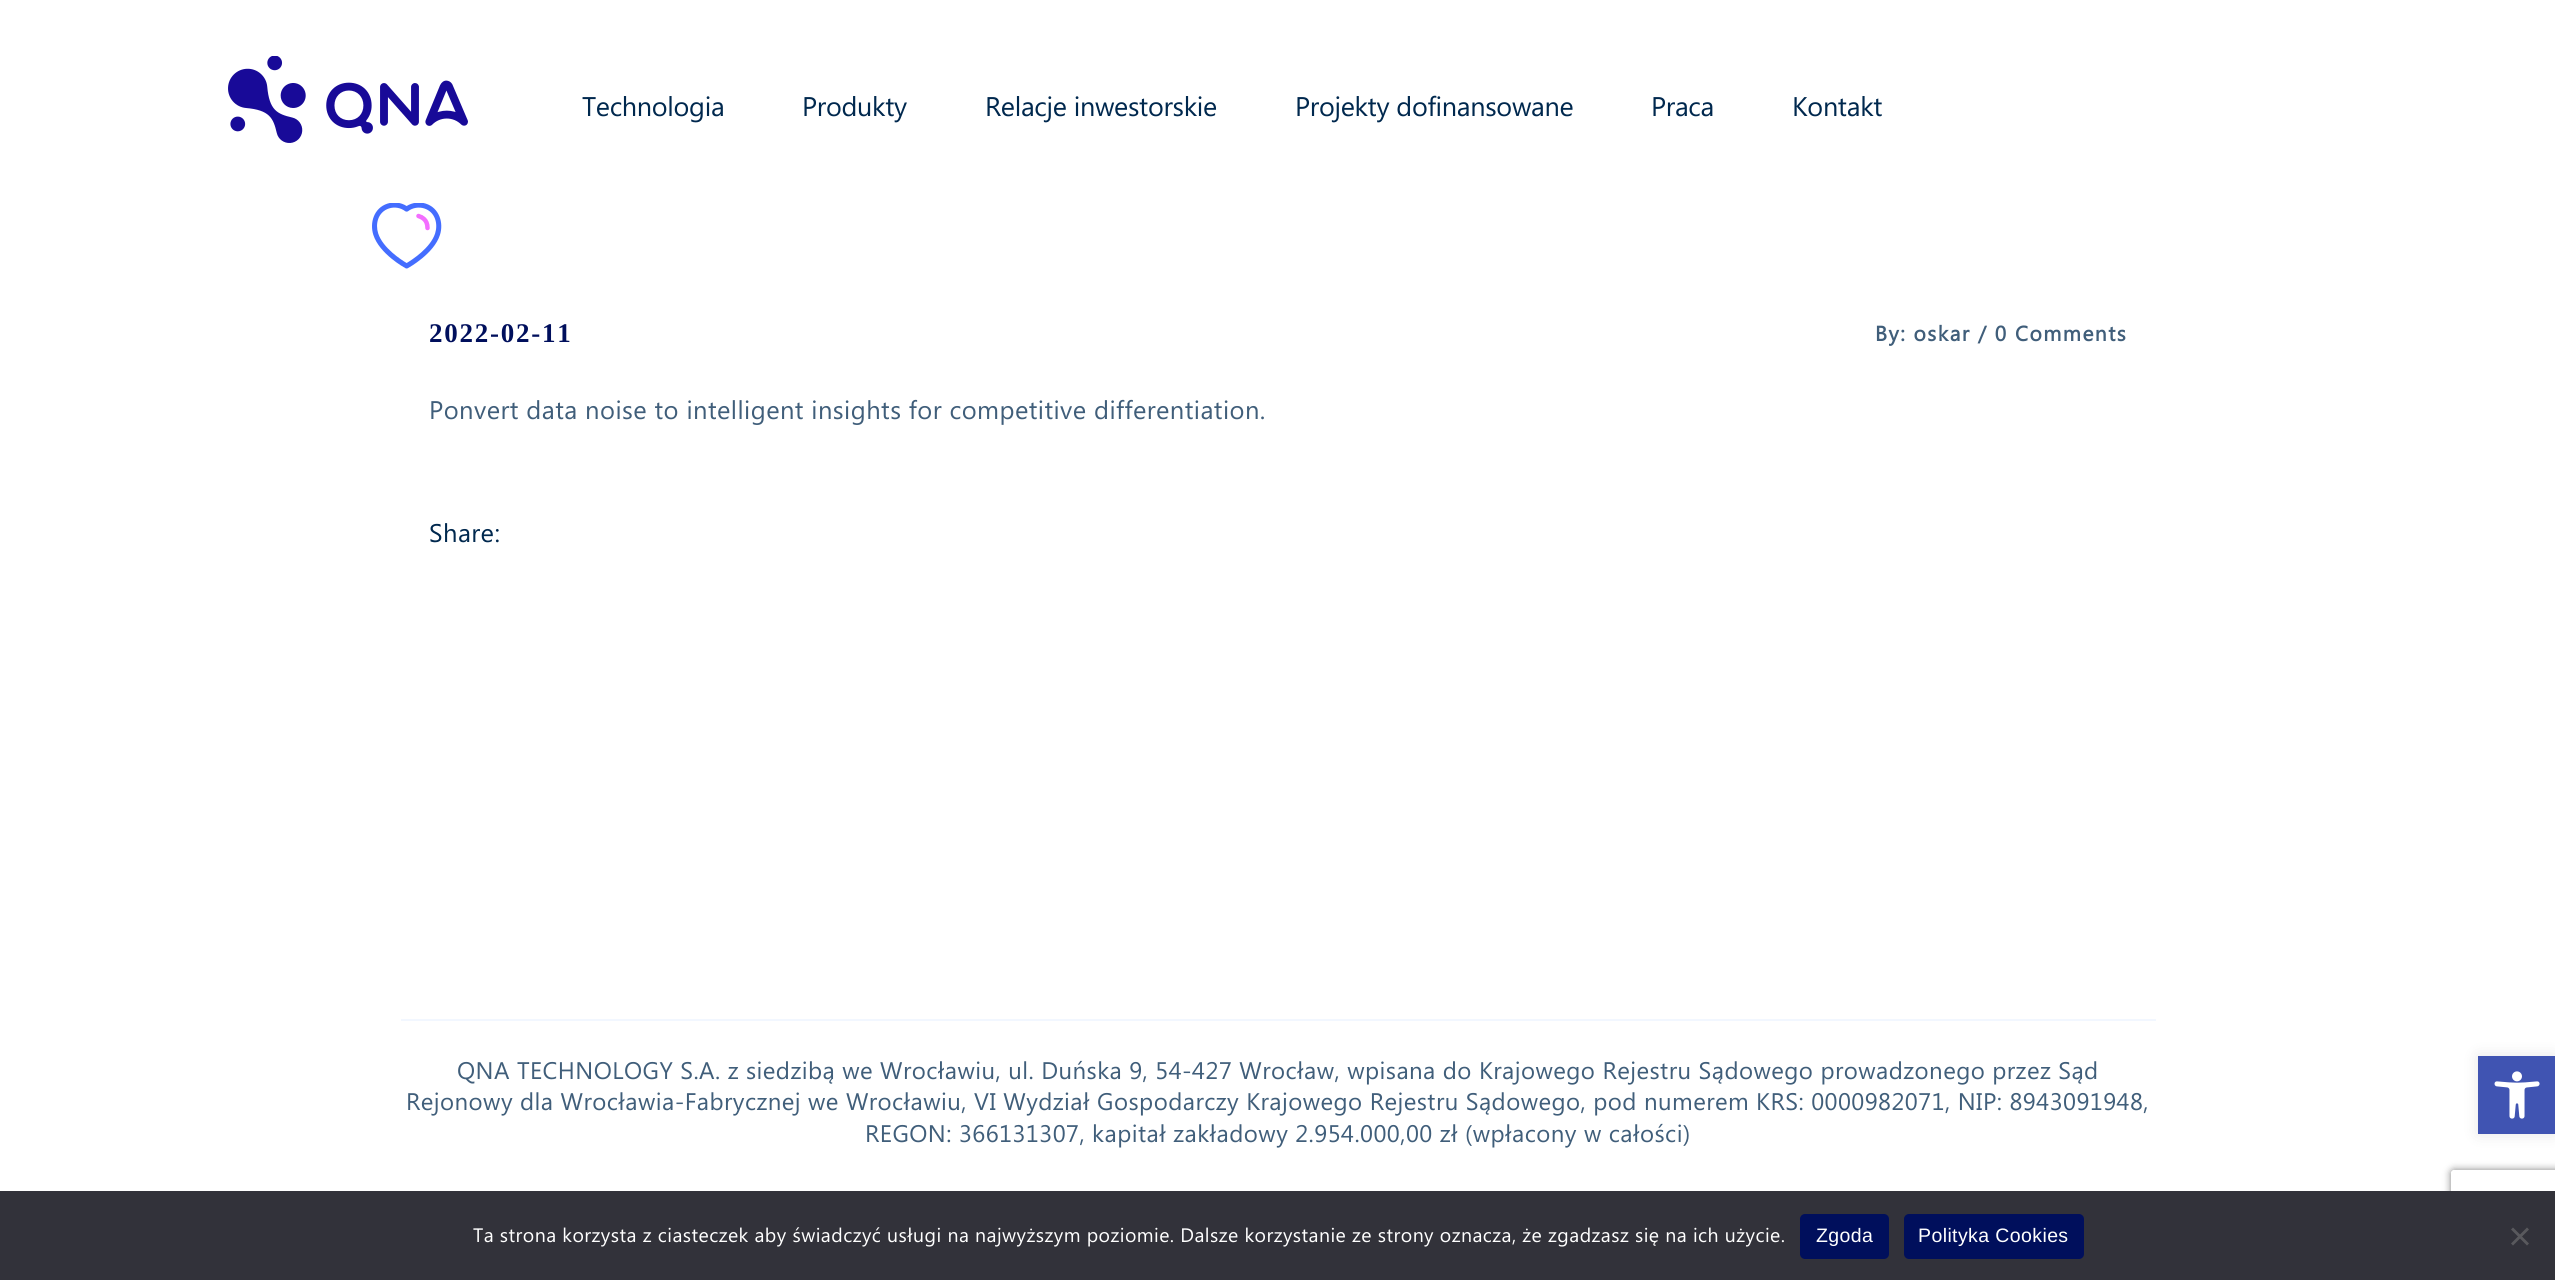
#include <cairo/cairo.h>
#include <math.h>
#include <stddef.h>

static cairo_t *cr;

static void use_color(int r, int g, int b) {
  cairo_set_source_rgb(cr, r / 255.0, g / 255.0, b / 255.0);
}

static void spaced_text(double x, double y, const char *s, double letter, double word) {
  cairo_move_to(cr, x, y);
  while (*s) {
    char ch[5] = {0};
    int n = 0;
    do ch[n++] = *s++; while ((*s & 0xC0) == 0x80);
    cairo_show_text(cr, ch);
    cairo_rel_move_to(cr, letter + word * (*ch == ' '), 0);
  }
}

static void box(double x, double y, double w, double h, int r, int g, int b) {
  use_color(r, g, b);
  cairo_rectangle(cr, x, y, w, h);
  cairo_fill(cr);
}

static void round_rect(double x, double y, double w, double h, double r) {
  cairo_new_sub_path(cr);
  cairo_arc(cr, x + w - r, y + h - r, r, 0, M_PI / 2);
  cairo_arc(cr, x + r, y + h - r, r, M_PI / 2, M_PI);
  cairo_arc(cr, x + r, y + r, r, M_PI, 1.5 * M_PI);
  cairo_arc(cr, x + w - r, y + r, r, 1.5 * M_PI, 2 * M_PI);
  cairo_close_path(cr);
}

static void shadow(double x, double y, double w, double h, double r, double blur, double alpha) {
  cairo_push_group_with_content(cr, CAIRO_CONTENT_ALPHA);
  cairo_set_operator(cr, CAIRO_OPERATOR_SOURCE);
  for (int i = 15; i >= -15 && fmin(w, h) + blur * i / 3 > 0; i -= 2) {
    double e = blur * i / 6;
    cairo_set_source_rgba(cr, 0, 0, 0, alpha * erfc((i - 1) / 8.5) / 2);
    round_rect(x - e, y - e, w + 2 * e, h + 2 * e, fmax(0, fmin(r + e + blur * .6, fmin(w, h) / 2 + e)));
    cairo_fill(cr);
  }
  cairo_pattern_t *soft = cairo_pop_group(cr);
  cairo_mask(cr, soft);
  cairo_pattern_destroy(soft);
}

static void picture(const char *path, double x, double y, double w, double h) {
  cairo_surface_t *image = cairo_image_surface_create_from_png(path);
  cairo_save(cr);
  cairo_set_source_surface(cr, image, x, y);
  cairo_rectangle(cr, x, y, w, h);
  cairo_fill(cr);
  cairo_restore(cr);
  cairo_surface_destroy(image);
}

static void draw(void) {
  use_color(255, 255, 255);
  cairo_paint(cr);
  picture("img_01.png", 228, 56, 240, 87);
  picture("img_02.png", 372, 203, 70, 66);
  box(401, 1019, 1755, 2, 242, 247, 255);
  use_color(0, 0, 0);
  shadow(2478, 1056, 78, 78, 0, 7.5, 0.1);
  box(2478, 1056, 77, 78, 64, 84, 178);
  picture("img_03.png", 2494, 1071, 46, 48);
  cairo_save(cr);
  cairo_set_fill_rule(cr, CAIRO_FILL_RULE_EVEN_ODD);
  cairo_new_path(cr);
  cairo_move_to(cr, 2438, 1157);
  cairo_line_to(cr, 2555, 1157);
  cairo_line_to(cr, 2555, 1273);
  cairo_line_to(cr, 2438, 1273);
  cairo_close_path(cr);
  cairo_move_to(cr, 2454, 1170);
  cairo_line_to(cr, 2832, 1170);
  cairo_curve_to(cr, 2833.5, 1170, 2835, 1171.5, 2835, 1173);
  cairo_line_to(cr, 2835, 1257);
  cairo_curve_to(cr, 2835, 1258.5, 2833.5, 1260, 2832, 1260);
  cairo_line_to(cr, 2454, 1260);
  cairo_curve_to(cr, 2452.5, 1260, 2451, 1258.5, 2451, 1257);
  cairo_line_to(cr, 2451, 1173);
  cairo_curve_to(cr, 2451, 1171.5, 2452.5, 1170, 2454, 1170);
  cairo_close_path(cr);
  cairo_clip(cr);
  use_color(128, 128, 128);
  shadow(2451, 1170, 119, 90, 3, 4, 1);
  cairo_restore(cr);
  box(0, 1191, 2555, 89, 50, 50, 58);
  use_color(0, 15, 92);
  round_rect(1800, 1214, 89, 45, 5);
  cairo_fill(cr);
  round_rect(1904, 1214, 180, 45, 5);
  cairo_fill(cr);
  use_color(89, 89, 93);
  cairo_new_path(cr);
  cairo_move_to(cr, 2527, 1227.5);
  cairo_line_to(cr, 2529, 1229.5);
  cairo_line_to(cr, 2513, 1245.5);
  cairo_line_to(cr, 2511, 1243.5);
  cairo_close_path(cr);
  cairo_fill(cr);
  cairo_new_path(cr);
  cairo_move_to(cr, 2511, 1229.5);
  cairo_line_to(cr, 2513, 1227.5);
  cairo_line_to(cr, 2529, 1243.5);
  cairo_line_to(cr, 2527, 1245.5);
  cairo_close_path(cr);
  cairo_fill(cr);
  cairo_select_font_face(cr, "Segoe UI", CAIRO_FONT_SLANT_NORMAL, CAIRO_FONT_WEIGHT_NORMAL);
  cairo_set_font_size(cr, 27);
  use_color(0, 40, 78);
  spaced_text(582, 116, "Technologia", -0.3, 0);
  spaced_text(802, 116, "Produkty", -0.3, 0);
  spaced_text(985, 116, "Relacje inwestorskie", -0.3, 0);
  spaced_text(1295, 116, "Projekty dofinansowane", -0.3, 0);
  spaced_text(1651, 116, "Praca", -0.3, 0);
  spaced_text(1792, 116, "Kontakt", -0.3, 0);
  cairo_select_font_face(cr, "Liberation Serif", CAIRO_FONT_SLANT_NORMAL, CAIRO_FONT_WEIGHT_BOLD);
  use_color(0, 15, 92);
  spaced_text(429, 342, "2022-02-11", 1.75, 0);
  cairo_select_font_face(cr, "Segoe UI", CAIRO_FONT_SLANT_NORMAL, CAIRO_FONT_WEIGHT_BOLD);
  cairo_set_font_size(cr, 21);
  use_color(64, 94, 122);
  spaced_text(1875, 341, "By: oskar / 0 Comments", 1.5, 0);
  cairo_select_font_face(cr, "Segoe UI", CAIRO_FONT_SLANT_NORMAL, CAIRO_FONT_WEIGHT_NORMAL);
  cairo_set_font_size(cr, 25.5);
  spaced_text(429, 419, "Ponvert data noise to intelligent insights for competitive differentiation.", 0.45, 0);
  use_color(0, 40, 78);
  spaced_text(429, 542, "Share:", 0.45, 0);
  cairo_set_font_size(cr, 24);
  use_color(64, 94, 122);
  spaced_text(457, 1079, "QNA TECHNOLOGY S.A. z siedzibą we Wrocławiu, ul. Duńska 9, 54-427 Wrocław, wpisana do Krajowego Rejestru Sądowego prowadzonego przez Sąd", 0.45, 0);
  spaced_text(406, 1110, "Rejonowy dla Wrocławia-Fabrycznej we Wrocławiu, VI Wydział Gospodarczy Krajowego Rejestru Sądowego, pod numerem KRS: 0000982071, NIP: 8943091948,", 0.45, 0);
  spaced_text(865, 1142, "REGON: 366131307, kapitał zakładowy 2.954.000,00 zł (wpłacony w całości)", 0.45, 0);
  cairo_set_font_size(cr, 19.5);
  use_color(255, 255, 255);
  spaced_text(473, 1242, "Ta strona korzysta z ciasteczek aby świadczyć usługi na najwyższym poziomie. Dalsze korzystanie ze strony oznacza, że zgadzasz się na ich użycie.", 0.45, 0);
  cairo_select_font_face(cr, "Liberation Sans", CAIRO_FONT_SLANT_NORMAL, CAIRO_FONT_WEIGHT_NORMAL);
  spaced_text(1816, 1242, "Zgoda", 0.4, 0);
  spaced_text(1918, 1242, "Polityka Cookies", 0.4, 0);
}

int main(void) {
  cairo_surface_t *surface = cairo_image_surface_create(CAIRO_FORMAT_RGB24, 2555, 1280);
  cr = cairo_create(surface);
  cairo_font_options_t *options = cairo_font_options_create();
  cairo_font_options_set_hint_metrics(options, CAIRO_HINT_METRICS_OFF);
  cairo_font_options_set_hint_style(options, CAIRO_HINT_STYLE_NONE);
  cairo_set_font_options(cr, options);
  cairo_set_miter_limit(cr, 4);
  draw();
  cairo_surface_write_to_png(surface, "out.png");
  cairo_font_options_destroy(options);
  cairo_destroy(cr);
  cairo_surface_destroy(surface);
  return 0;
}
